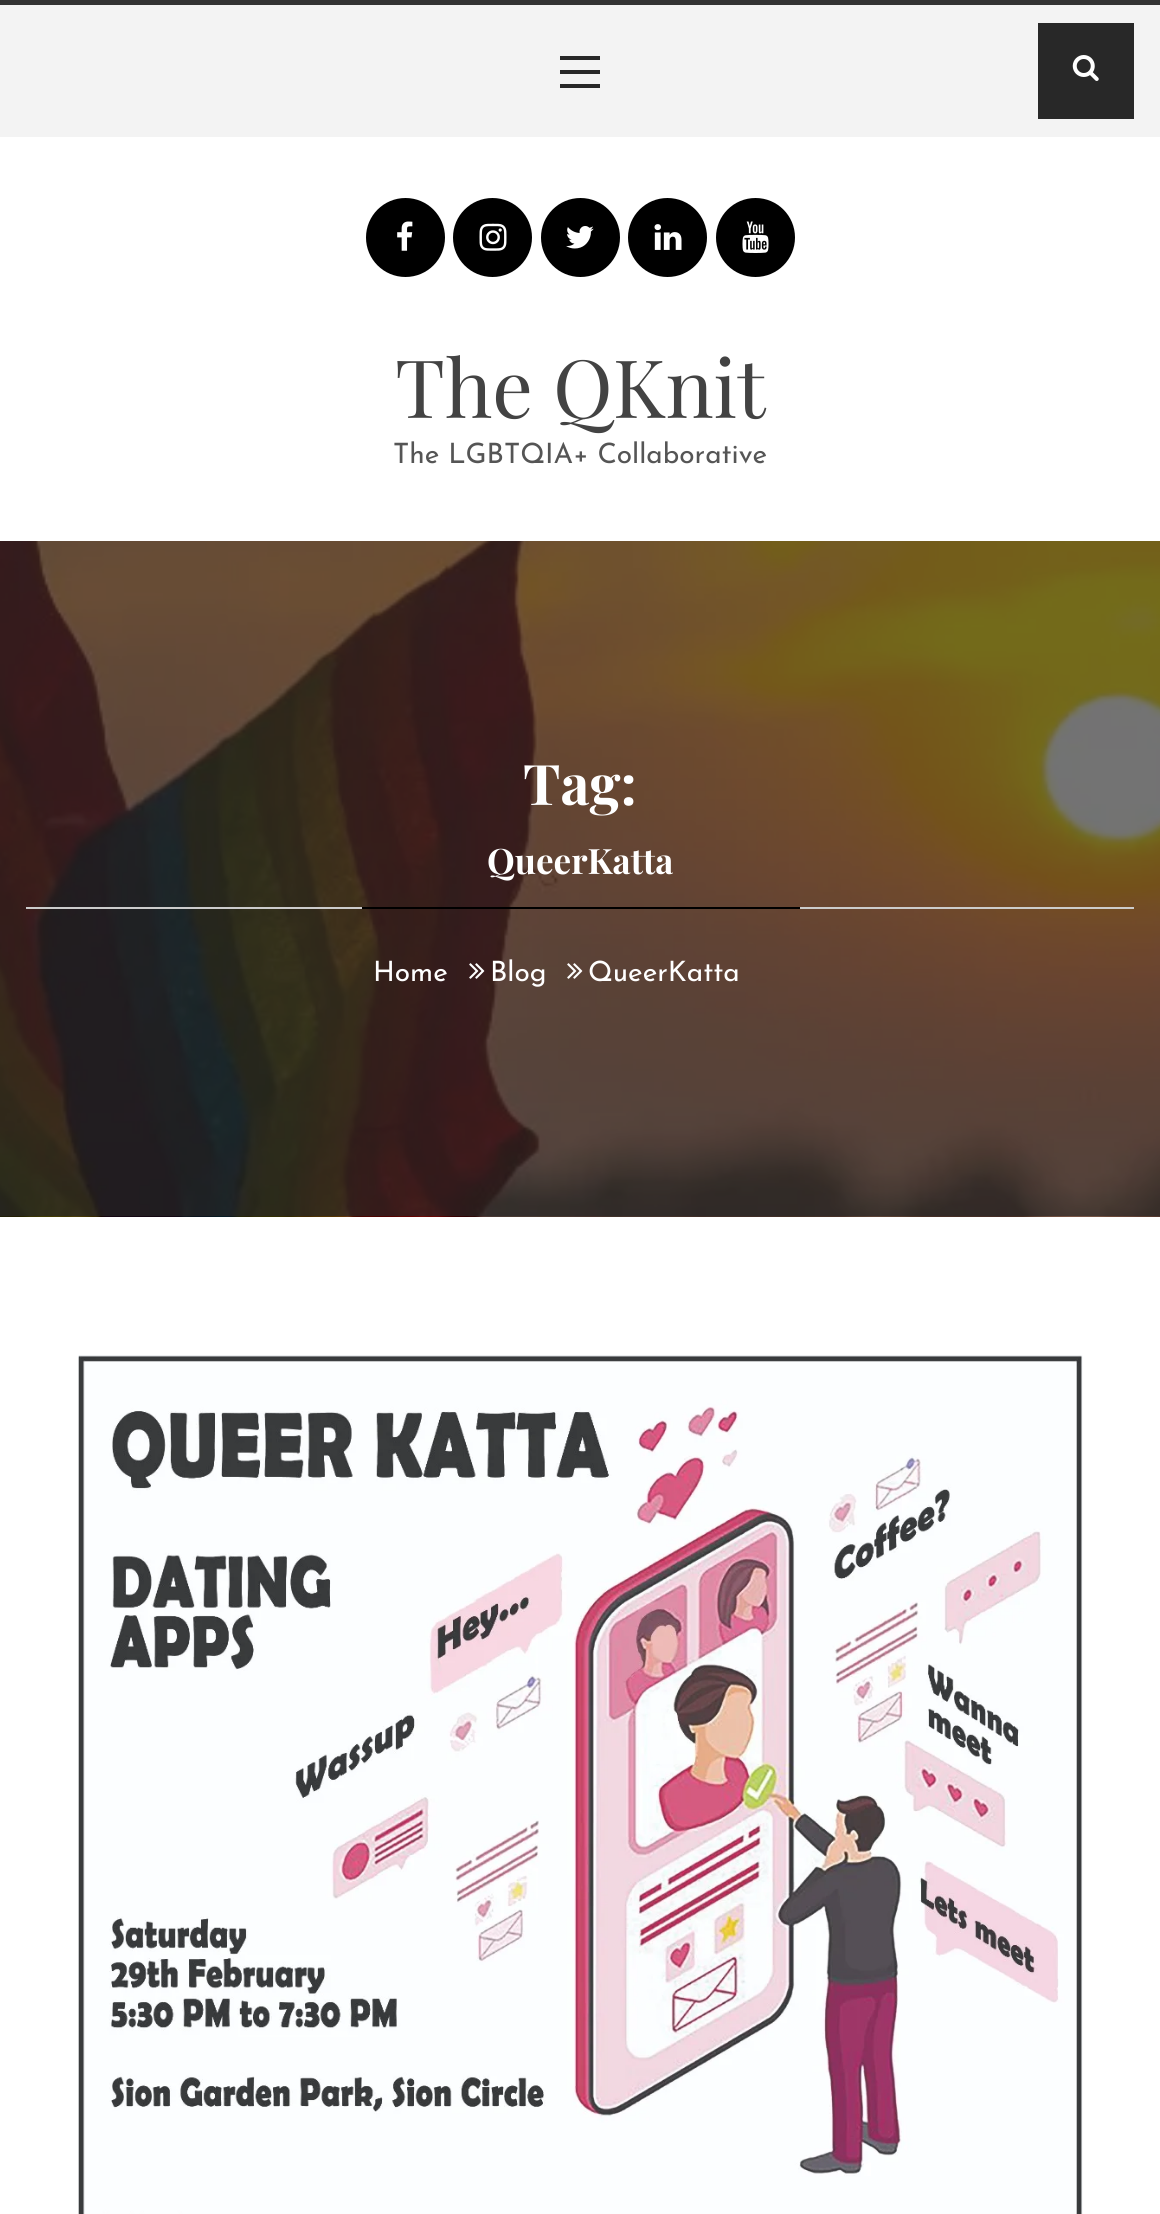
#include <cairo/cairo.h>
#include <math.h>
#include <stddef.h>

static cairo_t *cr;

static void use_color(int r, int g, int b) {
  cairo_set_source_rgb(cr, r / 255.0, g / 255.0, b / 255.0);
}

static void text(double x, double y, const char *s, const char *family, double size, int italic, int bold, int r, int g, int b) {
  cairo_select_font_face(cr, family, italic ? CAIRO_FONT_SLANT_ITALIC : CAIRO_FONT_SLANT_NORMAL,
    bold ? CAIRO_FONT_WEIGHT_BOLD : CAIRO_FONT_WEIGHT_NORMAL);
  cairo_set_font_size(cr, size);
  use_color(r, g, b);
  cairo_move_to(cr, x, y);
  cairo_show_text(cr, s);
}

static void box(double x, double y, double w, double h, int r, int g, int b) {
  use_color(r, g, b);
  cairo_rectangle(cr, x, y, w, h);
  cairo_fill(cr);
}

static void picture(const char *path, double x, double y, double w, double h) {
  cairo_surface_t *image = cairo_image_surface_create_from_png(path);
  cairo_save(cr);
  cairo_set_source_surface(cr, image, x, y);
  cairo_rectangle(cr, x, y, w, h);
  cairo_fill(cr);
  cairo_restore(cr);
  cairo_surface_destroy(image);
}

static void draw(void) {
  use_color(255, 255, 255);
  cairo_paint(cr);
  box(0, 5, 1160, 132, 243, 243, 243);
  box(0, 0, 1160, 5, 51, 51, 51);
  box(560, 70, 40, 4, 40, 40, 40);
  box(560, 56, 40, 4, 40, 40, 40);
  box(560, 84, 40, 4, 40, 40, 40);
  box(1038, 23, 96, 96, 40, 40, 40);
  picture("img_01.png", 1072, 55, 27, 26);
  use_color(0, 0, 0);
  cairo_arc(cr, 405.5, 237.5, 39.5, 0, 2 * M_PI);
  cairo_fill(cr);
  picture("img_02.png", 397, 221, 16, 30);
  cairo_arc(cr, 492.5, 237.5, 39.5, 0, 2 * M_PI);
  cairo_fill(cr);
  picture("img_03.png", 479, 223, 28, 28);
  cairo_arc(cr, 580.5, 237.5, 39.5, 0, 2 * M_PI);
  cairo_fill(cr);
  picture("img_04.png", 566, 226, 28, 23);
  cairo_arc(cr, 667.5, 237.5, 39.5, 0, 2 * M_PI);
  cairo_fill(cr);
  picture("img_05.png", 654, 224, 28, 26);
  cairo_arc(cr, 755.5, 237.5, 39.5, 0, 2 * M_PI);
  cairo_fill(cr);
  picture("img_06.png", 742, 221, 27, 32);
  picture("img_07.png", 0, 541, 1160, 676);
  box(26, 907, 1108, 2, 204, 204, 204);
  box(362, 907, 438, 2, 0, 0, 0);
  picture("img_08.png", 469, 963, 16, 16);
  picture("img_09.png", 567, 963, 16, 16);
  picture("img_10.png", 78, 1355, 1005, 859);
  text(395, 418, "The QKnit", "Playfair Display", 80.5, 0, 0, 67, 67, 67);
  text(393, 463, "The LGBTQIA+ Collaborative", "Josefin Sans", 28, 0, 0, 85, 85, 85);
  text(523, 805, "Tag:", "Playfair Display", 56, 0, 1, 255, 255, 255);
  text(487, 874, "QueerKatta", "Playfair Display", 35, 0, 1, 255, 255, 255);
  text(373, 981, "Home", "Josefin Sans", 28, 0, 0, 255, 255, 255);
  text(490, 981, "Blog", "Josefin Sans", 28, 0, 0, 255, 255, 255);
  text(588, 981, "QueerKatta", "Josefin Sans", 28, 0, 0, 255, 255, 255);
}

int main(void) {
  cairo_surface_t *surface = cairo_image_surface_create(CAIRO_FORMAT_RGB24, 1160, 2214);
  cr = cairo_create(surface);
  cairo_font_options_t *options = cairo_font_options_create();
  cairo_font_options_set_hint_metrics(options, CAIRO_HINT_METRICS_OFF);
  cairo_font_options_set_hint_style(options, CAIRO_HINT_STYLE_NONE);
  cairo_set_font_options(cr, options);
  cairo_set_miter_limit(cr, 4);
  draw();
  cairo_surface_write_to_png(surface, "out.png");
  cairo_font_options_destroy(options);
  cairo_destroy(cr);
  cairo_surface_destroy(surface);
  return 0;
}
